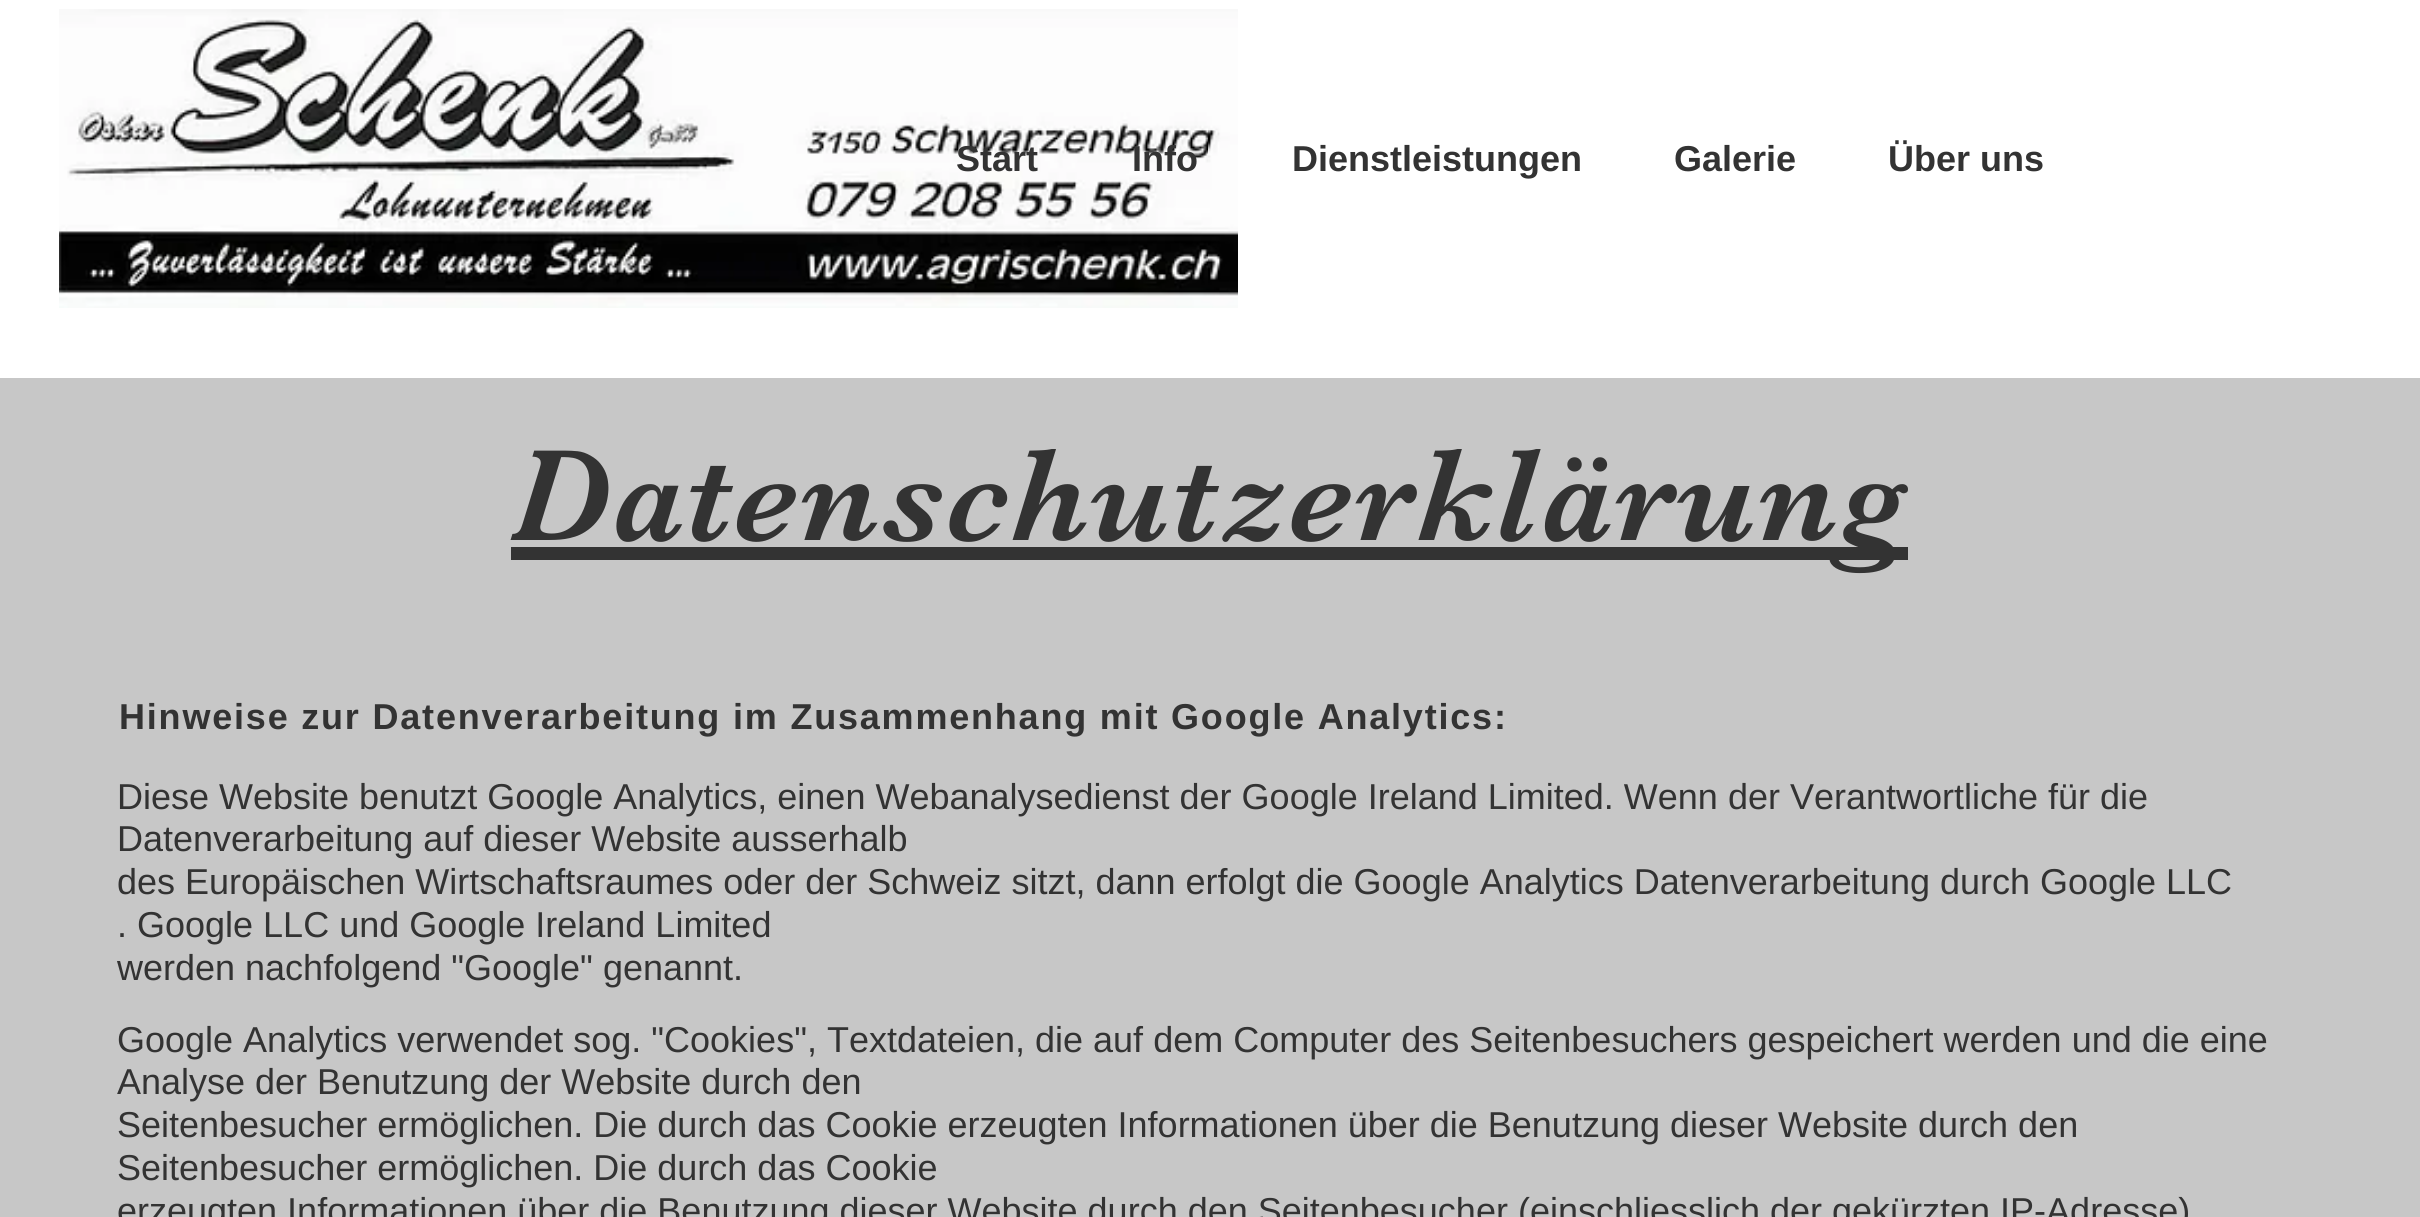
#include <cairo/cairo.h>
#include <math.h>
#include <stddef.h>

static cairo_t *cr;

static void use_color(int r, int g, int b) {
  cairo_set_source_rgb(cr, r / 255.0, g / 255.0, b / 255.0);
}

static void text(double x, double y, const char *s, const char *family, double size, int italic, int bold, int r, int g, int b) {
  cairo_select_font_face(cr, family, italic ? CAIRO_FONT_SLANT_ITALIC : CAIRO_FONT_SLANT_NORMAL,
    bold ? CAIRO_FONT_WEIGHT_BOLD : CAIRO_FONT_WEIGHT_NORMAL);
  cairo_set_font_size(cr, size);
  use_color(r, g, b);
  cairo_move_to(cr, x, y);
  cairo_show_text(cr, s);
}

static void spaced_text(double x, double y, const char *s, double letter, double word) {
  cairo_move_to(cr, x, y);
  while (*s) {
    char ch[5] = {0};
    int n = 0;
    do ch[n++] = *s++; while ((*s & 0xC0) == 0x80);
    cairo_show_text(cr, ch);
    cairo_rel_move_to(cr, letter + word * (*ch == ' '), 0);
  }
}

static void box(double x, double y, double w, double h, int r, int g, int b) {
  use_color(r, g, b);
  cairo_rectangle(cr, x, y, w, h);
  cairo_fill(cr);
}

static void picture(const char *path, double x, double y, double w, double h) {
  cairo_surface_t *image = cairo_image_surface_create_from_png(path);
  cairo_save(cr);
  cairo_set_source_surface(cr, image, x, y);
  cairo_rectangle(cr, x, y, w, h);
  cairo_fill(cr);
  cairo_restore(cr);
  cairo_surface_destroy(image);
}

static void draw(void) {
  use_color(255, 255, 255);
  cairo_paint(cr);
  picture("img_01.png", 59, 9, 1179, 299);
  box(0, 378, 2420, 839, 199, 199, 199);
  box(511, 547, 1397, 13, 51, 51, 51);
  text(956, 171, "Start", "Liberation Sans", 36, 0, 1, 51, 51, 51);
  text(1132, 171, "Info", "Liberation Sans", 36, 0, 1, 51, 51, 51);
  text(1292, 171, "Dienstleistungen", "Liberation Sans", 36, 0, 1, 51, 51, 51);
  text(1674, 171, "Galerie", "Liberation Sans", 36, 0, 1, 51, 51, 51);
  text(1888, 171, "Über uns", "Liberation Sans", 36, 0, 1, 51, 51, 51);
  cairo_select_font_face(cr, "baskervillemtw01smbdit", CAIRO_FONT_SLANT_NORMAL, CAIRO_FONT_WEIGHT_NORMAL);
  cairo_set_font_size(cr, 135);
  spaced_text(510, 540, "Datenschutzerklärung", 2.75, 0);
  cairo_select_font_face(cr, "Liberation Sans", CAIRO_FONT_SLANT_NORMAL, CAIRO_FONT_WEIGHT_BOLD);
  cairo_set_font_size(cr, 36);
  spaced_text(119, 729, "Hinweise zur Datenverarbeitung im Zusammenhang mit Google Analytics:", 1.8, 0);
  text(117, 809, "Diese Website benutzt Google Analytics, einen Webanalysedienst der Google Ireland Limited. Wenn der Verantwortliche für die", "Liberation Sans", 36, 0, 0, 51, 51, 51);
  text(117, 851, "Datenverarbeitung auf dieser Website ausserhalb", "Liberation Sans", 36, 0, 0, 51, 51, 51);
  text(117, 894, "des Europäischen Wirtschaftsraumes oder der Schweiz sitzt, dann erfolgt die Google Analytics Datenverarbeitung durch Google LLC", "Liberation Sans", 36, 0, 0, 51, 51, 51);
  text(117, 937, ". Google LLC und Google Ireland Limited", "Liberation Sans", 36, 0, 0, 51, 51, 51);
  text(117, 980, "werden nachfolgend \"Google\" genannt.", "Liberation Sans", 36, 0, 0, 51, 51, 51);
  text(117, 1052, "Google Analytics verwendet sog. \"Cookies\", Textdateien, die auf dem Computer des Seitenbesuchers gespeichert werden und die eine", "Liberation Sans", 36, 0, 0, 51, 51, 51);
  text(117, 1094, "Analyse der Benutzung der Website durch den", "Liberation Sans", 36, 0, 0, 51, 51, 51);
  text(117, 1137, "Seitenbesucher ermöglichen. Die durch das Cookie erzeugten Informationen über die Benutzung dieser Website durch den", "Liberation Sans", 36, 0, 0, 51, 51, 51);
  text(117, 1180, "Seitenbesucher ermöglichen. Die durch das Cookie", "Liberation Sans", 36, 0, 0, 51, 51, 51);
  text(117, 1223, "erzeugten Informationen über die Benutzung dieser Website durch den Seitenbesucher (einschliesslich der gekürzten IP-Adresse)", "Liberation Sans", 36, 0, 0, 51, 51, 51);
}

int main(void) {
  cairo_surface_t *surface = cairo_image_surface_create(CAIRO_FORMAT_RGB24, 2420, 1217);
  cr = cairo_create(surface);
  cairo_font_options_t *options = cairo_font_options_create();
  cairo_font_options_set_hint_metrics(options, CAIRO_HINT_METRICS_OFF);
  cairo_font_options_set_hint_style(options, CAIRO_HINT_STYLE_NONE);
  cairo_set_font_options(cr, options);
  cairo_set_miter_limit(cr, 4);
  draw();
  cairo_surface_write_to_png(surface, "out.png");
  cairo_font_options_destroy(options);
  cairo_destroy(cr);
  cairo_surface_destroy(surface);
  return 0;
}
